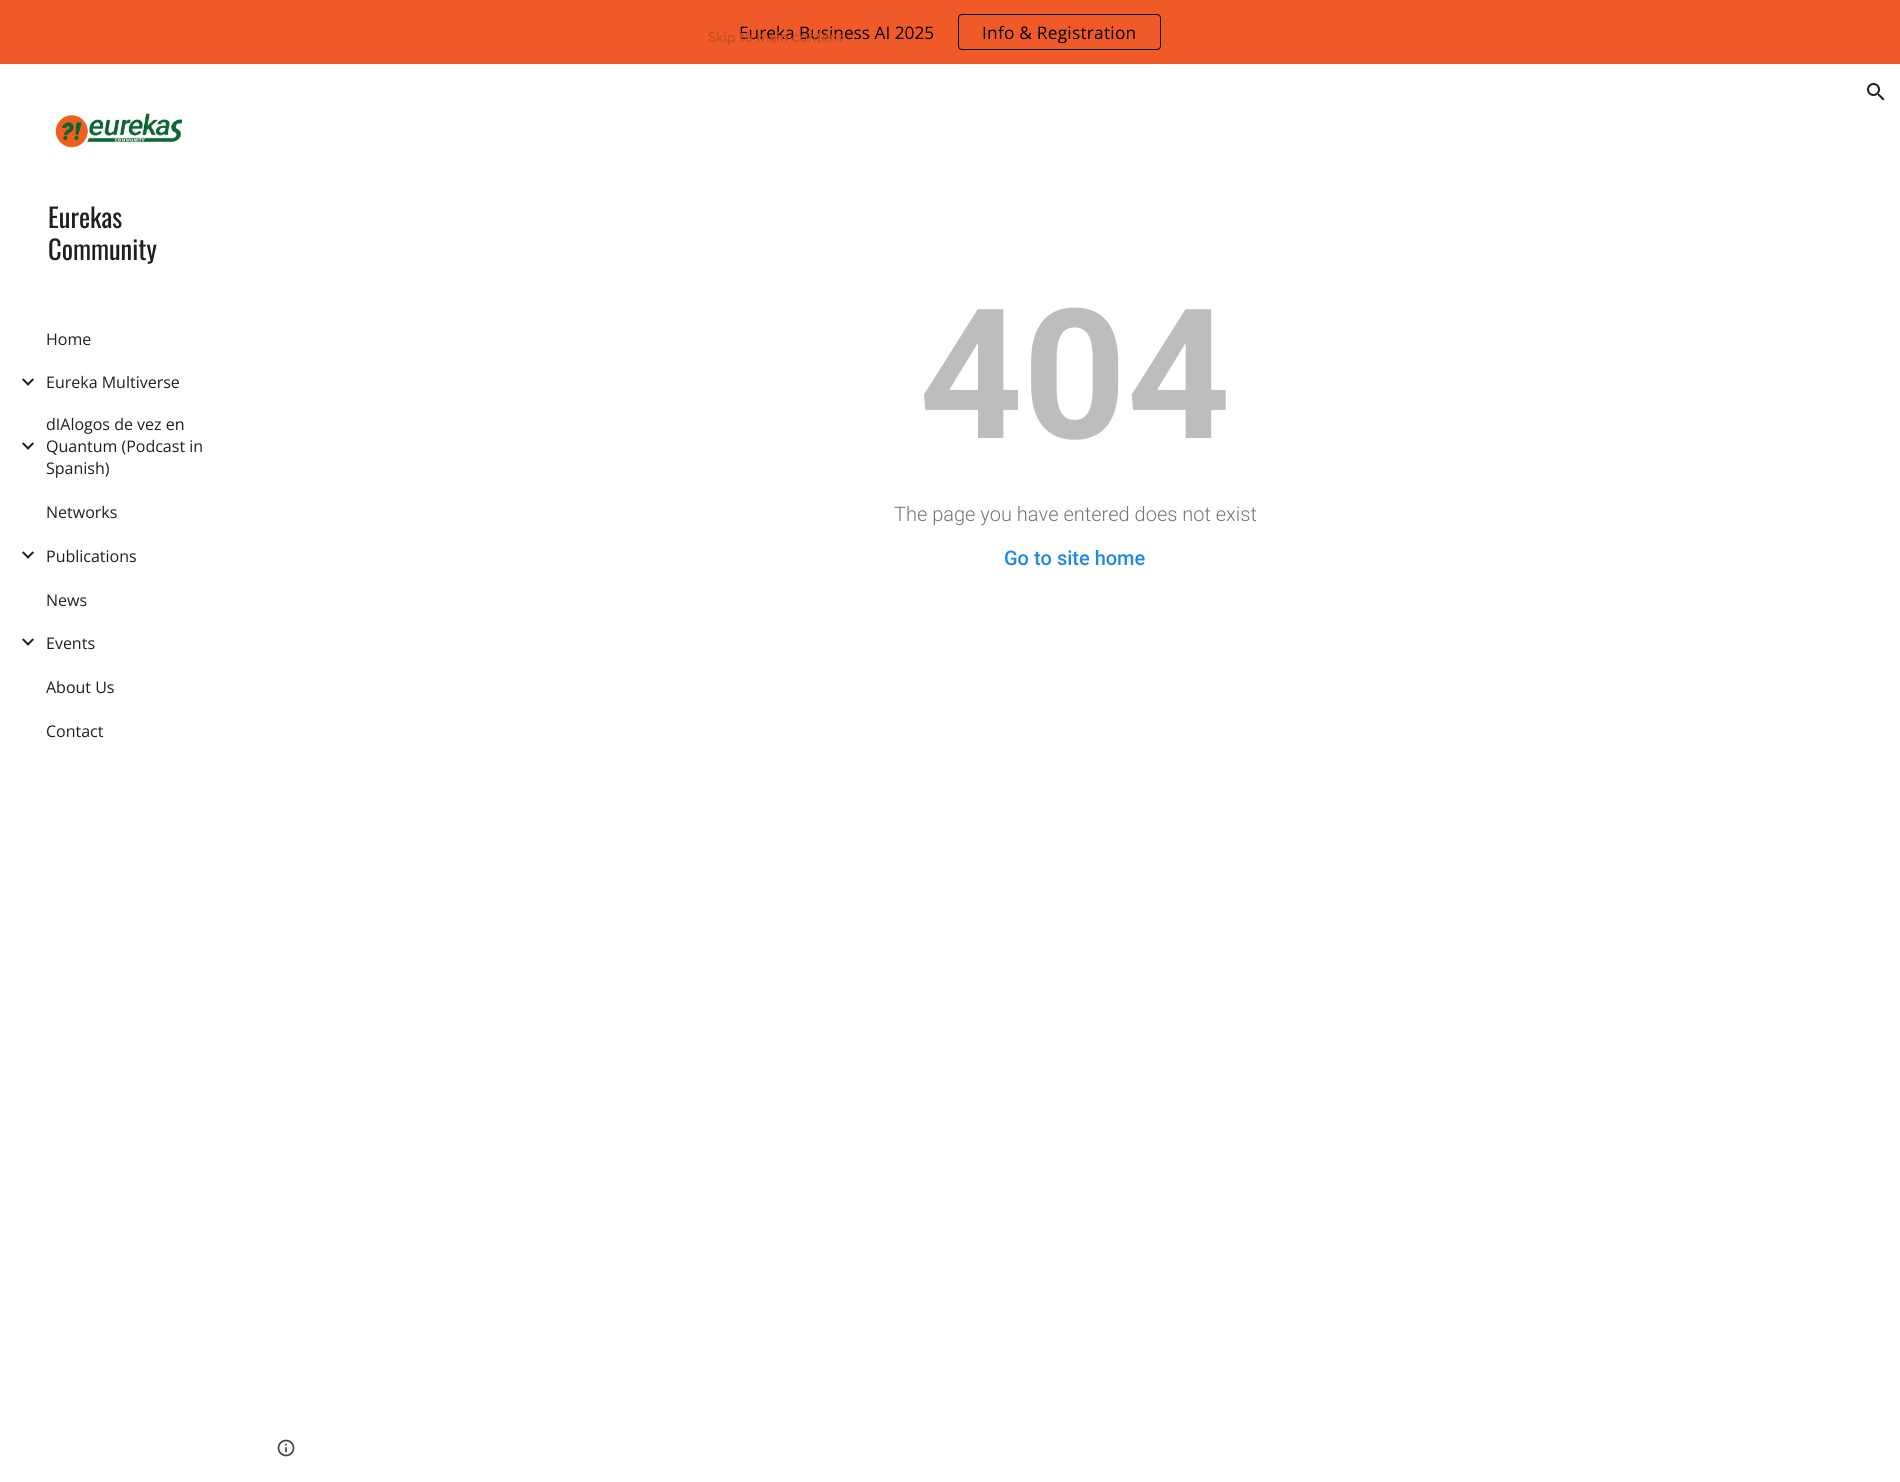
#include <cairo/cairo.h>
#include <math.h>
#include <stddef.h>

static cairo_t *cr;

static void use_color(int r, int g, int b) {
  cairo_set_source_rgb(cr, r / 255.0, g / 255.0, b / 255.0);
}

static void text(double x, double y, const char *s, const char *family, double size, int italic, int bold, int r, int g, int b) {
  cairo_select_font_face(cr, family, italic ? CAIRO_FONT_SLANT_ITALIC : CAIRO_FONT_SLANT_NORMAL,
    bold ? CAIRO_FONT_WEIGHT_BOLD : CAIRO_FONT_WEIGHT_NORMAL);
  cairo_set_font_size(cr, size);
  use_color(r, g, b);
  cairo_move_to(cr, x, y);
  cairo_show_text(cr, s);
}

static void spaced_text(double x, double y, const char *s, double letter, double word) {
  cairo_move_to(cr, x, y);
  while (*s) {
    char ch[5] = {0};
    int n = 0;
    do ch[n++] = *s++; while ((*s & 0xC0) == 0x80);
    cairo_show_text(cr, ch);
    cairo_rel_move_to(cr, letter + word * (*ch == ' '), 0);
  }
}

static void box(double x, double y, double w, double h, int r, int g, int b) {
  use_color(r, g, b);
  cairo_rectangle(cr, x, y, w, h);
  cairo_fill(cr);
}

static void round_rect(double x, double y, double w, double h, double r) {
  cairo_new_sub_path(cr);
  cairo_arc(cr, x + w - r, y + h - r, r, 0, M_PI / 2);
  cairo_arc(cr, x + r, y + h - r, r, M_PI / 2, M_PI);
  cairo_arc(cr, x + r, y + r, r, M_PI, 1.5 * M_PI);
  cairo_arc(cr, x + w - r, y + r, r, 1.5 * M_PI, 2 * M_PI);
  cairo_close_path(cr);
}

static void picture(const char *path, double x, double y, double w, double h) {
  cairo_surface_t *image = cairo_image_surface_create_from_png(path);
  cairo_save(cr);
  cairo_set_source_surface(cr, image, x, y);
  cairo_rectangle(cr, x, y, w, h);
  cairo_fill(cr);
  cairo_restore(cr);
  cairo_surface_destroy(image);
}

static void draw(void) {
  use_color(255, 255, 255);
  cairo_paint(cr);
  box(0, 0, 1900, 64, 240, 90, 40);
  round_rect(958.5, 14.5, 202, 35, 3.5);
  use_color(0, 0, 0);
  cairo_set_line_width(cr, 1);
  cairo_stroke(cr);
  picture("img_01.png", 1867, 83, 18, 18);
  picture("img_02.png", 55, 113, 128, 35);
  picture("img_03.png", 22, 378, 12, 8);
  picture("img_03.png", 22, 442, 12, 8);
  picture("img_03.png", 22, 551, 12, 8);
  picture("img_03.png", 22, 638, 12, 8);
  picture("img_04.png", 277, 1439, 18, 18);
  text(739, 39, "Eureka Business AI 2025", "Open Sans", 17.25, 0, 0, 0, 0, 0);
  spaced_text(982, 39, "Info & Registration", 0.25, 0);
  text(48, 228, "Eurekas", "Oswald", 26.5, 0, 0, 31, 31, 31);
  text(48, 260, "Community", "Oswald", 26.5, 0, 0, 31, 31, 31);
  text(46, 345, "Home", "Open Sans", 16, 0, 0, 31, 31, 31);
  text(46, 388, "Eureka Multiverse", "Open Sans", 16, 0, 0, 31, 31, 31);
  text(46, 430, "dIAlogos de vez en", "Open Sans", 16, 0, 0, 31, 31, 31);
  text(46, 452, "Quantum (Podcast in", "Open Sans", 16, 0, 0, 31, 31, 31);
  text(46, 474, "Spanish)", "Open Sans", 16, 0, 0, 31, 31, 31);
  text(46, 518, "Networks", "Open Sans", 16, 0, 0, 31, 31, 31);
  text(46, 562, "Publications", "Open Sans", 16, 0, 0, 31, 31, 31);
  text(46, 606, "News", "Open Sans", 16, 0, 0, 31, 31, 31);
  text(46, 649, "Events", "Open Sans", 16, 0, 0, 31, 31, 31);
  text(46, 693, "About Us", "Open Sans", 16, 0, 0, 31, 31, 31);
  text(46, 737, "Contact", "Open Sans", 16, 0, 0, 31, 31, 31);
  text(919, 438, "404", "Roboto", 181, 0, 1, 189, 189, 189);
  text(894, 521, "The page you have entered does not exist", "Roboto Light", 20, 0, 0, 117, 117, 117);
  text(1004, 565, "Go to site home", "Roboto Medium", 20, 0, 0, 30, 136, 229);
  cairo_select_font_face(cr, "Google Sans Medium", CAIRO_FONT_SLANT_NORMAL, CAIRO_FONT_WEIGHT_NORMAL);
  cairo_set_font_size(cr, 14);
  use_color(202, 76, 34);
  spaced_text(708, 42, "Skip to main content", 0.1, 0);
}

int main(void) {
  cairo_surface_t *surface = cairo_image_surface_create(CAIRO_FORMAT_RGB24, 1900, 1482);
  cr = cairo_create(surface);
  cairo_font_options_t *options = cairo_font_options_create();
  cairo_font_options_set_hint_metrics(options, CAIRO_HINT_METRICS_OFF);
  cairo_font_options_set_hint_style(options, CAIRO_HINT_STYLE_NONE);
  cairo_set_font_options(cr, options);
  cairo_set_miter_limit(cr, 4);
  draw();
  cairo_surface_write_to_png(surface, "out.png");
  cairo_font_options_destroy(options);
  cairo_destroy(cr);
  cairo_surface_destroy(surface);
  return 0;
}
